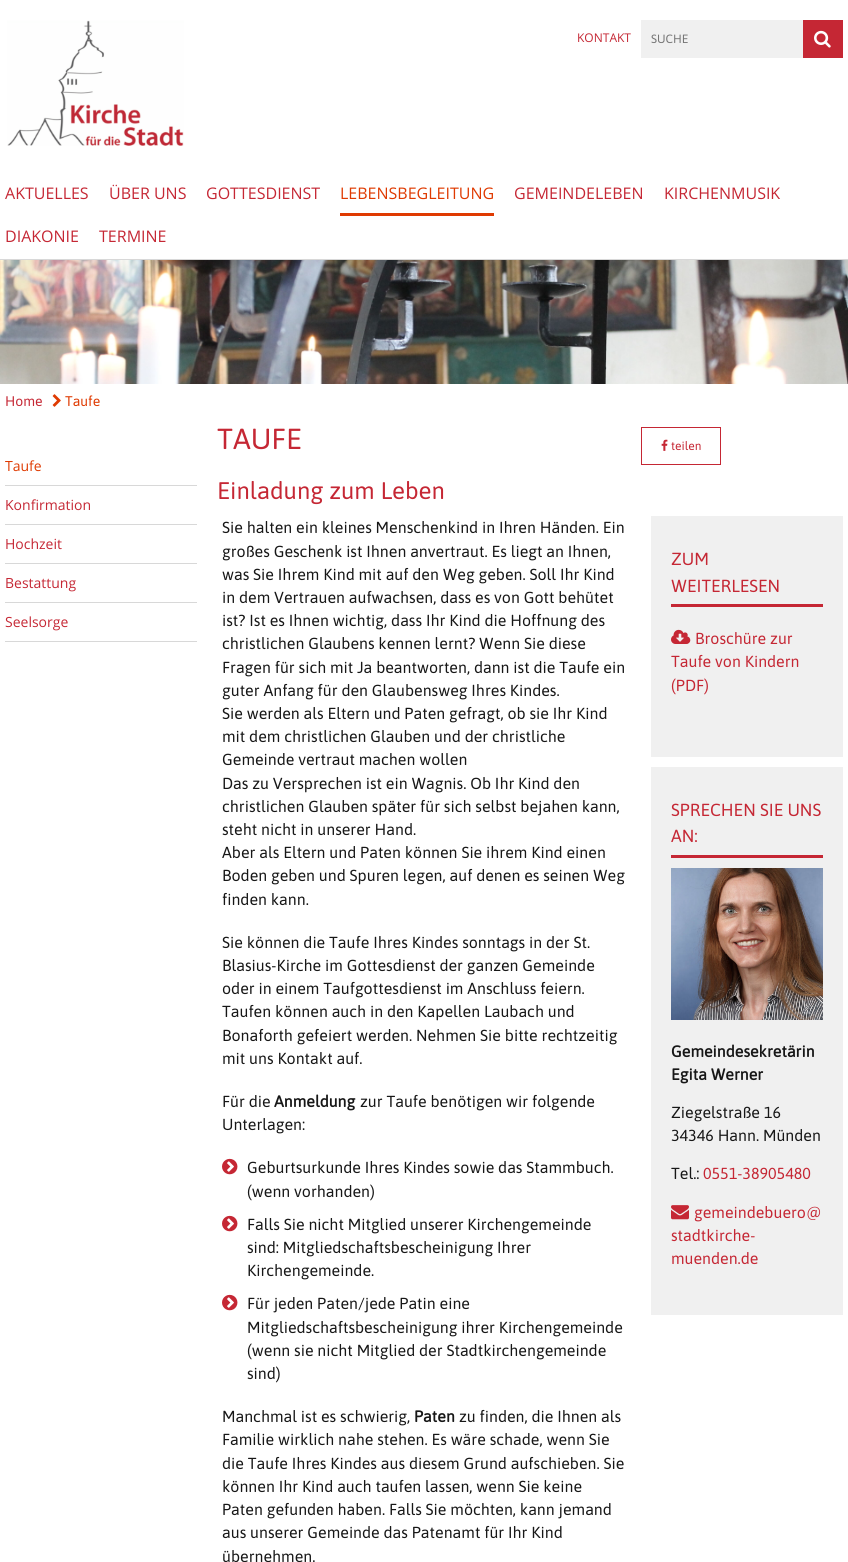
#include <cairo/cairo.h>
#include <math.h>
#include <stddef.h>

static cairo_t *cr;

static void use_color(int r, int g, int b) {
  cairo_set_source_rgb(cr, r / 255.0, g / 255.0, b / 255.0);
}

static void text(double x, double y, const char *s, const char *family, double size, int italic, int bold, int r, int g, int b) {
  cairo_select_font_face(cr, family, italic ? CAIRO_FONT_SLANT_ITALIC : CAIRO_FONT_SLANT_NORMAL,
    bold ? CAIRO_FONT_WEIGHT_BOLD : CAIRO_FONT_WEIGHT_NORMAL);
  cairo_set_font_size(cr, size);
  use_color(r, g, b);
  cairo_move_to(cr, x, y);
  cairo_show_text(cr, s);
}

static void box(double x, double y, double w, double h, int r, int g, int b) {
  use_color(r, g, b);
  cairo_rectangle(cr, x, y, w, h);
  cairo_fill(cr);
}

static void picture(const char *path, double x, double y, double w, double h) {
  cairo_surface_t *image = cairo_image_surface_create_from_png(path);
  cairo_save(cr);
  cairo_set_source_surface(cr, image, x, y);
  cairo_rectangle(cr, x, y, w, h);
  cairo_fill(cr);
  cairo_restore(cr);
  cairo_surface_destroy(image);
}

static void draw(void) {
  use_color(255, 255, 255);
  cairo_paint(cr);
  box(0, 259, 848, 1, 216, 216, 216);
  picture("img_01.png", 7, 20, 177, 126);
  box(641, 20, 162, 38, 240, 240, 240);
  box(803, 20, 40, 38, 197, 39, 52);
  picture("img_02.png", 814, 30, 17, 18);
  box(340, 213, 154, 3, 223, 58, 1);
  picture("img_03.png", 0, 260, 848, 124);
  picture("img_04.png", 52, 394, 9, 13);
  box(5, 485, 192, 1, 216, 216, 216);
  box(5, 524, 192, 1, 216, 216, 216);
  box(5, 563, 192, 1, 216, 216, 216);
  box(5, 602, 192, 1, 216, 216, 216);
  box(5, 641, 192, 1, 216, 216, 216);
  cairo_rectangle(cr, 641.5, 427.5, 79, 37);
  use_color(197, 39, 52);
  cairo_set_line_width(cr, 1);
  cairo_stroke(cr);
  picture("img_05.png", 661, 439, 7, 12);
  picture("img_06.png", 222, 1158, 16, 17);
  picture("img_06.png", 222, 1215, 16, 17);
  picture("img_06.png", 222, 1294, 16, 17);
  box(651, 516, 192, 241, 240, 240, 240);
  box(671, 604, 152, 3, 197, 39, 52);
  picture("img_07.png", 671, 629, 20, 15);
  box(651, 767, 192, 548, 240, 240, 240);
  box(671, 855, 152, 3, 197, 39, 52);
  picture("img_08.png", 671, 868, 152, 152);
  picture("img_09.png", 671, 1205, 18, 15);
  text(577, 42, "KONTAKT", "Open Sans", 12, 0, 0, 197, 39, 52);
  text(651, 43, "SUCHE", "Asap", 12, 0, 0, 117, 117, 117);
  text(5, 199, "AKTUELLES", "Open Sans", 16, 0, 0, 197, 39, 52);
  text(109, 199, "ÜBER UNS", "Open Sans", 16, 0, 0, 197, 39, 52);
  text(206, 199, "GOTTESDIENST", "Open Sans", 16, 0, 0, 197, 39, 52);
  text(340, 199, "LEBENSBEGLEITUNG", "Open Sans", 16, 0, 0, 223, 58, 1);
  text(514, 199, "GEMEINDELEBEN", "Open Sans", 16, 0, 0, 197, 39, 52);
  text(664, 199, "KIRCHENMUSIK", "Open Sans", 16, 0, 0, 197, 39, 52);
  text(5, 242, "DIAKONIE", "Open Sans", 16, 0, 0, 197, 39, 52);
  text(99, 242, "TERMINE", "Open Sans", 16, 0, 0, 197, 39, 52);
  text(5, 406, "Home", "Asap", 14, 0, 0, 197, 39, 52);
  text(65, 406, "Taufe", "Asap", 14, 0, 0, 223, 58, 1);
  text(5, 471, "Taufe", "Open Sans", 14, 0, 0, 223, 58, 1);
  text(5, 510, "Konfirmation", "Open Sans", 14, 0, 0, 197, 39, 52);
  text(5, 549, "Hochzeit", "Open Sans", 14, 0, 0, 197, 39, 52);
  text(5, 588, "Bestattung", "Open Sans", 14, 0, 0, 197, 39, 52);
  text(5, 627, "Seelsorge", "Open Sans", 14, 0, 0, 197, 39, 52);
  text(217, 449, "TAUFE", "Asap", 29, 0, 0, 197, 39, 52);
  text(671, 450, "teilen", "Asap", 12, 0, 0, 197, 39, 52);
  text(217, 499, "Einladung zum Leben", "Asap", 24, 0, 0, 197, 39, 52);
  text(222, 533, "Sie halten ein kleines Menschenkind in Ihren Händen. Ein", "Asap", 16, 0, 0, 23, 23, 23);
  text(222, 557, "großes Geschenk ist Ihnen anvertraut. Es liegt an Ihnen,", "Asap", 16, 0, 0, 23, 23, 23);
  text(222, 580, "was Sie Ihrem Kind mit auf den Weg geben. Soll Ihr Kind", "Asap", 16, 0, 0, 23, 23, 23);
  text(222, 603, "in dem Vertrauen aufwachsen, dass es von Gott behütet", "Asap", 16, 0, 0, 23, 23, 23);
  text(222, 626, "ist? Ist es Ihnen wichtig, dass Ihr Kind die Hoffnung des", "Asap", 16, 0, 0, 23, 23, 23);
  text(222, 649, "christlichen Glaubens kennen lernt? Wenn Sie diese", "Asap", 16, 0, 0, 23, 23, 23);
  text(222, 673, "Fragen für sich mit Ja beantworten, dann ist die Taufe ein", "Asap", 16, 0, 0, 23, 23, 23);
  text(222, 696, "guter Anfang für den Glaubensweg Ihres Kindes.", "Asap", 16, 0, 0, 23, 23, 23);
  text(222, 719, "Sie werden als Eltern und Paten gefragt, ob sie Ihr Kind", "Asap", 16, 0, 0, 23, 23, 23);
  text(222, 742, "mit dem christlichen Glauben und der christliche", "Asap", 16, 0, 0, 23, 23, 23);
  text(222, 765, "Gemeinde vertraut machen wollen", "Asap", 16, 0, 0, 23, 23, 23);
  text(222, 789, "Das zu Versprechen ist ein Wagnis. Ob Ihr Kind den", "Asap", 16, 0, 0, 23, 23, 23);
  text(222, 812, "christlichen Glauben später für sich selbst bejahen kann,", "Asap", 16, 0, 0, 23, 23, 23);
  text(222, 835, "steht nicht in unserer Hand.", "Asap", 16, 0, 0, 23, 23, 23);
  text(222, 858, "Aber als Eltern und Paten können Sie ihrem Kind einen", "Asap", 16, 0, 0, 23, 23, 23);
  text(222, 881, "Boden geben und Spuren legen, auf denen es seinen Weg", "Asap", 16, 0, 0, 23, 23, 23);
  text(222, 905, "finden kann.", "Asap", 16, 0, 0, 23, 23, 23);
  text(222, 948, "Sie können die Taufe Ihres Kindes sonntags in der St.", "Asap", 16, 0, 0, 23, 23, 23);
  text(222, 971, "Blasius-Kirche im Gottesdienst der ganzen Gemeinde", "Asap", 16, 0, 0, 23, 23, 23);
  text(222, 994, "oder in einem Taufgottesdienst im Anschluss feiern.", "Asap", 16, 0, 0, 23, 23, 23);
  text(222, 1017, "Taufen können auch in den Kapellen Laubach und", "Asap", 16, 0, 0, 23, 23, 23);
  text(222, 1041, "Bonaforth gefeiert werden. Nehmen Sie bitte rechtzeitig", "Asap", 16, 0, 0, 23, 23, 23);
  text(222, 1064, "mit uns Kontakt auf.", "Asap", 16, 0, 0, 23, 23, 23);
  text(222, 1107, "Für die", "Asap", 16, 0, 0, 23, 23, 23);
  text(274, 1107, "Anmeldung", "Asap", 16, 0, 1, 23, 23, 23);
  text(360, 1107, "zur Taufe benötigen wir folgende", "Asap", 16, 0, 0, 23, 23, 23);
  text(222, 1130, "Unterlagen:", "Asap", 16, 0, 0, 23, 23, 23);
  text(247, 1173, "Geburtsurkunde Ihres Kindes sowie das Stammbuch.", "Asap", 16, 0, 0, 23, 23, 23);
  text(247, 1197, "(wenn vorhanden)", "Asap", 16, 0, 0, 23, 23, 23);
  text(247, 1230, "Falls Sie nicht Mitglied unserer Kirchengemeinde", "Asap", 16, 0, 0, 23, 23, 23);
  text(247, 1253, "sind: Mitgliedschaftsbescheinigung Ihrer", "Asap", 16, 0, 0, 23, 23, 23);
  text(247, 1276, "Kirchengemeinde.", "Asap", 16, 0, 0, 23, 23, 23);
  text(247, 1309, "Für jeden Paten/jede Patin eine", "Asap", 16, 0, 0, 23, 23, 23);
  text(247, 1333, "Mitgliedschaftsbescheinigung ihrer Kirchengemeinde", "Asap", 16, 0, 0, 23, 23, 23);
  text(247, 1356, "(wenn sie nicht Mitglied der Stadtkirchengemeinde", "Asap", 16, 0, 0, 23, 23, 23);
  text(247, 1379, "sind)", "Asap", 16, 0, 0, 23, 23, 23);
  text(222, 1422, "Manchmal ist es schwierig,", "Asap", 16, 0, 0, 23, 23, 23);
  text(414, 1422, "Paten", "Asap", 16, 0, 1, 23, 23, 23);
  text(459, 1422, "zu finden, die Ihnen als", "Asap", 16, 0, 0, 23, 23, 23);
  text(222, 1445, "Familie wirklich nahe stehen. Es wäre schade, wenn Sie", "Asap", 16, 0, 0, 23, 23, 23);
  text(222, 1469, "die Taufe Ihres Kindes aus diesem Grund aufschieben. Sie", "Asap", 16, 0, 0, 23, 23, 23);
  text(222, 1492, "können Ihr Kind auch taufen lassen, wenn Sie keine", "Asap", 16, 0, 0, 23, 23, 23);
  text(222, 1515, "Paten gefunden haben. Falls Sie möchten, kann jemand", "Asap", 16, 0, 0, 23, 23, 23);
  text(222, 1538, "aus unserer Gemeinde das Patenamt für Ihr Kind", "Asap", 16, 0, 0, 23, 23, 23);
  text(222, 1562, "übernehmen.", "Asap", 16, 0, 0, 23, 23, 23);
  text(671, 565, "ZUM", "Asap", 17.5, 0, 0, 197, 39, 52);
  text(671, 592, "WEITERLESEN", "Asap", 17.5, 0, 0, 197, 39, 52);
  text(695, 644, "Broschüre zur", "Asap", 16, 0, 0, 197, 39, 52);
  text(671, 667, "Taufe von Kindern", "Asap", 16, 0, 0, 197, 39, 52);
  text(671, 691, "(PDF)", "Asap", 16, 0, 0, 197, 39, 52);
  text(671, 816, "SPRECHEN SIE UNS", "Asap", 17.5, 0, 0, 197, 39, 52);
  text(671, 842, "AN:", "Asap", 17.5, 0, 0, 197, 39, 52);
  text(671, 1057, "Gemeindesekretärin", "Asap", 16, 0, 1, 23, 23, 23);
  text(671, 1080, "Egita Werner", "Asap", 16, 0, 1, 23, 23, 23);
  text(671, 1118, "Ziegelstraße 16", "Asap", 16, 0, 0, 23, 23, 23);
  text(671, 1141, "34346 Hann. Münden", "Asap", 16, 0, 0, 23, 23, 23);
  text(671, 1179, "Tel.:", "Asap", 16, 0, 0, 23, 23, 23);
  text(703, 1179, "0551-38905480", "Asap", 16, 0, 0, 197, 39, 52);
  text(694, 1218, "gemeindebuero@", "Asap", 16, 0, 0, 197, 39, 52);
  text(671, 1241, "stadtkirche-", "Asap", 16, 0, 0, 197, 39, 52);
  text(671, 1264, "muenden.de", "Asap", 16, 0, 0, 197, 39, 52);
}

int main(void) {
  cairo_surface_t *surface = cairo_image_surface_create(CAIRO_FORMAT_RGB24, 848, 1562);
  cr = cairo_create(surface);
  cairo_font_options_t *options = cairo_font_options_create();
  cairo_font_options_set_hint_metrics(options, CAIRO_HINT_METRICS_OFF);
  cairo_font_options_set_hint_style(options, CAIRO_HINT_STYLE_NONE);
  cairo_set_font_options(cr, options);
  cairo_set_miter_limit(cr, 4);
  draw();
  cairo_surface_write_to_png(surface, "out.png");
  cairo_font_options_destroy(options);
  cairo_destroy(cr);
  cairo_surface_destroy(surface);
  return 0;
}
